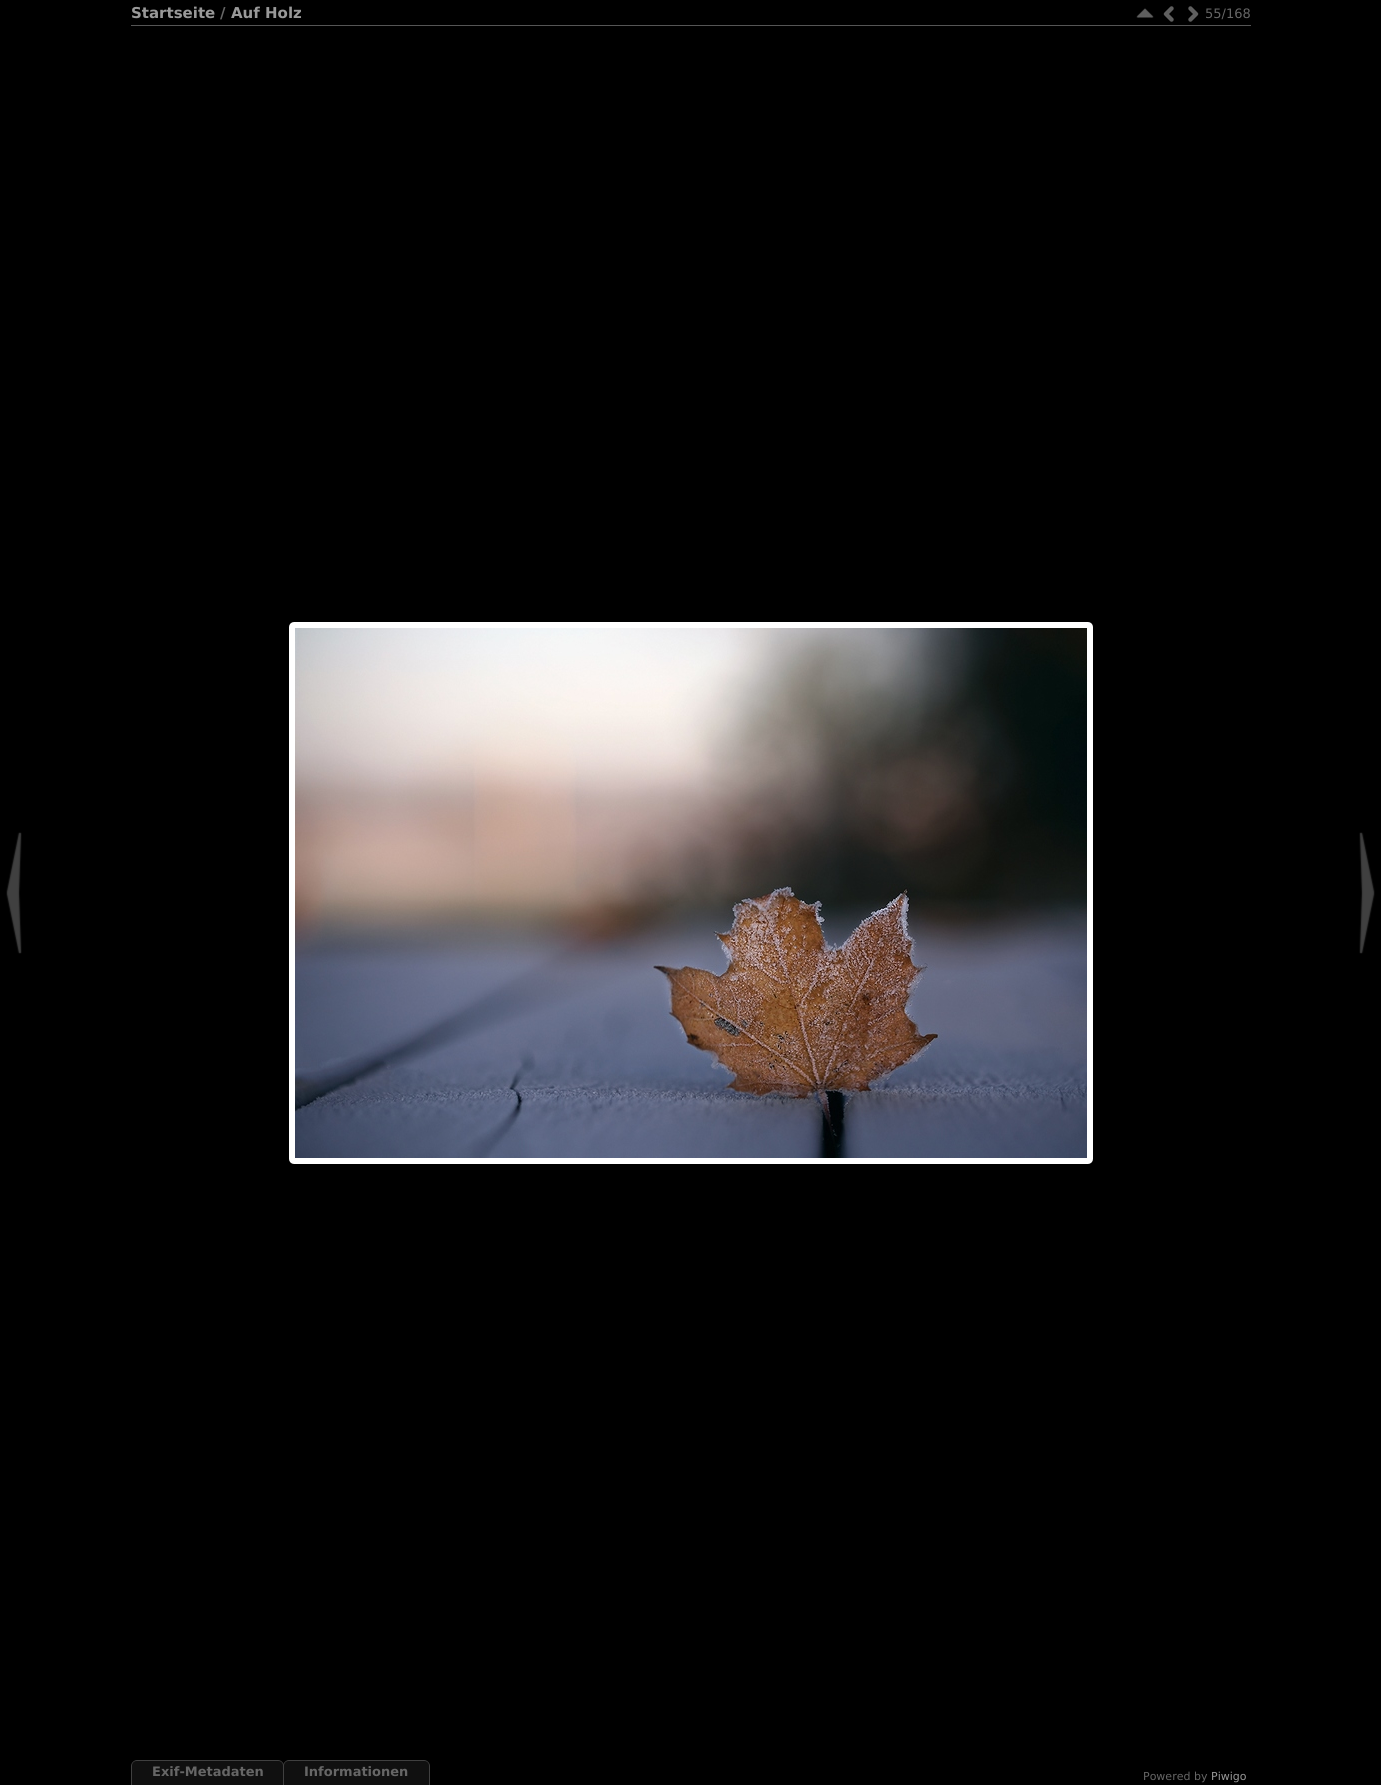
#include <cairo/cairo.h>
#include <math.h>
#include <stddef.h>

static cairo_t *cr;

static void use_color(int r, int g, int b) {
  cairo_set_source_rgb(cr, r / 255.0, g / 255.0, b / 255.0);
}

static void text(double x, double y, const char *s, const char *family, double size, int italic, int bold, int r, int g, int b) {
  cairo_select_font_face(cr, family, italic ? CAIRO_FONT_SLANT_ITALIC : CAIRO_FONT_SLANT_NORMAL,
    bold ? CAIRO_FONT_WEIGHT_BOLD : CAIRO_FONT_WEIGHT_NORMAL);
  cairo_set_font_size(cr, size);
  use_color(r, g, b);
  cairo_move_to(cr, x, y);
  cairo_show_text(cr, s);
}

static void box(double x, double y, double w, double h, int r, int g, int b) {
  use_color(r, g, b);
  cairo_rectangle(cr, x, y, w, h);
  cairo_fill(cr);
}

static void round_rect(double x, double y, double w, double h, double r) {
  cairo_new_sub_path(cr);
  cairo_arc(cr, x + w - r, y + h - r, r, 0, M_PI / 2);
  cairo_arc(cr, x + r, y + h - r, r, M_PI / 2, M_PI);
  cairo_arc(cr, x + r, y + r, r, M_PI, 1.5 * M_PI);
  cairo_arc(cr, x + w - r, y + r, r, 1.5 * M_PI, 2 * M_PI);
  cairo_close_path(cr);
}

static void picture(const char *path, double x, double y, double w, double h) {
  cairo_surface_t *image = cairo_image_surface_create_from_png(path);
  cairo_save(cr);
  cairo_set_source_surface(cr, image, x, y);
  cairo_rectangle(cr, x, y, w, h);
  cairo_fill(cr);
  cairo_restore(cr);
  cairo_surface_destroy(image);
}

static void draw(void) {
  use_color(0, 0, 0);
  cairo_paint(cr);
  box(131, 25, 1120, 1, 85, 85, 85);
  picture("img_01.png", 1136, 8, 18, 10);
  picture("img_02.png", 1163, 6, 11, 16);
  picture("img_03.png", 1188, 6, 11, 16);
  picture("img_04.png", 6, 832, 16, 122);
  round_rect(292, 625, 798, 536, 2);
  use_color(255, 255, 255);
  cairo_set_line_width(cr, 6);
  cairo_stroke(cr);
  picture("img_05.png", 295, 628, 792, 530);
  picture("img_06.png", 1359, 832, 16, 122);
  use_color(16, 16, 16);
  cairo_new_path(cr);
  cairo_move_to(cr, 137, 1761);
  cairo_line_to(cr, 278, 1761);
  cairo_curve_to(cr, 281, 1761, 283, 1763, 283, 1766);
  cairo_line_to(cr, 283, 1785);
  cairo_line_to(cr, 132, 1785);
  cairo_line_to(cr, 132, 1766);
  cairo_curve_to(cr, 132, 1763, 134, 1761, 137, 1761);
  cairo_close_path(cr);
  cairo_fill(cr);
  use_color(64, 64, 64);
  cairo_set_fill_rule(cr, CAIRO_FILL_RULE_EVEN_ODD);
  cairo_new_path(cr);
  cairo_move_to(cr, 137, 1760);
  cairo_line_to(cr, 278, 1760);
  cairo_curve_to(cr, 281, 1760, 284, 1763, 284, 1766);
  cairo_line_to(cr, 284, 1785);
  cairo_line_to(cr, 131, 1785);
  cairo_line_to(cr, 131, 1766);
  cairo_curve_to(cr, 131, 1763, 134, 1760, 137, 1760);
  cairo_close_path(cr);
  cairo_move_to(cr, 137, 1761);
  cairo_line_to(cr, 278, 1761);
  cairo_curve_to(cr, 281, 1761, 283, 1763, 283, 1766);
  cairo_line_to(cr, 283, 1785);
  cairo_line_to(cr, 132, 1785);
  cairo_line_to(cr, 132, 1766);
  cairo_curve_to(cr, 132, 1763, 134, 1761, 137, 1761);
  cairo_close_path(cr);
  cairo_fill(cr);
  use_color(16, 16, 16);
  cairo_new_path(cr);
  cairo_move_to(cr, 289, 1761);
  cairo_line_to(cr, 424, 1761);
  cairo_curve_to(cr, 427, 1761, 429, 1763, 429, 1766);
  cairo_line_to(cr, 429, 1785);
  cairo_line_to(cr, 284, 1785);
  cairo_line_to(cr, 284, 1766);
  cairo_curve_to(cr, 284, 1763, 286, 1761, 289, 1761);
  cairo_close_path(cr);
  cairo_fill(cr);
  use_color(64, 64, 64);
  cairo_new_path(cr);
  cairo_move_to(cr, 289, 1760);
  cairo_line_to(cr, 424, 1760);
  cairo_curve_to(cr, 427, 1760, 430, 1763, 430, 1766);
  cairo_line_to(cr, 430, 1785);
  cairo_line_to(cr, 283, 1785);
  cairo_line_to(cr, 283, 1766);
  cairo_curve_to(cr, 283, 1763, 286, 1760, 289, 1760);
  cairo_close_path(cr);
  cairo_move_to(cr, 289, 1761);
  cairo_line_to(cr, 424, 1761);
  cairo_curve_to(cr, 427, 1761, 429, 1763, 429, 1766);
  cairo_line_to(cr, 429, 1785);
  cairo_line_to(cr, 284, 1785);
  cairo_line_to(cr, 284, 1766);
  cairo_curve_to(cr, 284, 1763, 286, 1761, 289, 1761);
  cairo_close_path(cr);
  cairo_fill(cr);
  text(131, 18, "Startseite", "DejaVu Sans", 15, 0, 1, 153, 153, 153);
  text(220, 18, "/", "DejaVu Sans", 15, 0, 1, 102, 102, 102);
  text(231, 18, "Auf Holz", "DejaVu Sans", 15, 0, 1, 153, 153, 153);
  text(1205, 18, "55/168", "DejaVu Sans", 13, 0, 0, 102, 102, 102);
  text(152, 1776, "Exif-Metadaten", "DejaVu Sans", 13, 0, 1, 102, 102, 102);
  text(304, 1776, "Informationen", "DejaVu Sans", 13, 0, 1, 102, 102, 102);
  text(1143, 1780, "Powered by", "DejaVu Sans", 11, 0, 0, 102, 102, 102);
  text(1211, 1780, "Piwigo", "DejaVu Sans", 11, 0, 0, 153, 153, 153);
}

int main(void) {
  cairo_surface_t *surface = cairo_image_surface_create(CAIRO_FORMAT_RGB24, 1381, 1785);
  cr = cairo_create(surface);
  cairo_font_options_t *options = cairo_font_options_create();
  cairo_font_options_set_hint_metrics(options, CAIRO_HINT_METRICS_OFF);
  cairo_font_options_set_hint_style(options, CAIRO_HINT_STYLE_NONE);
  cairo_set_font_options(cr, options);
  cairo_set_miter_limit(cr, 4);
  draw();
  cairo_surface_write_to_png(surface, "out.png");
  cairo_font_options_destroy(options);
  cairo_destroy(cr);
  cairo_surface_destroy(surface);
  return 0;
}
